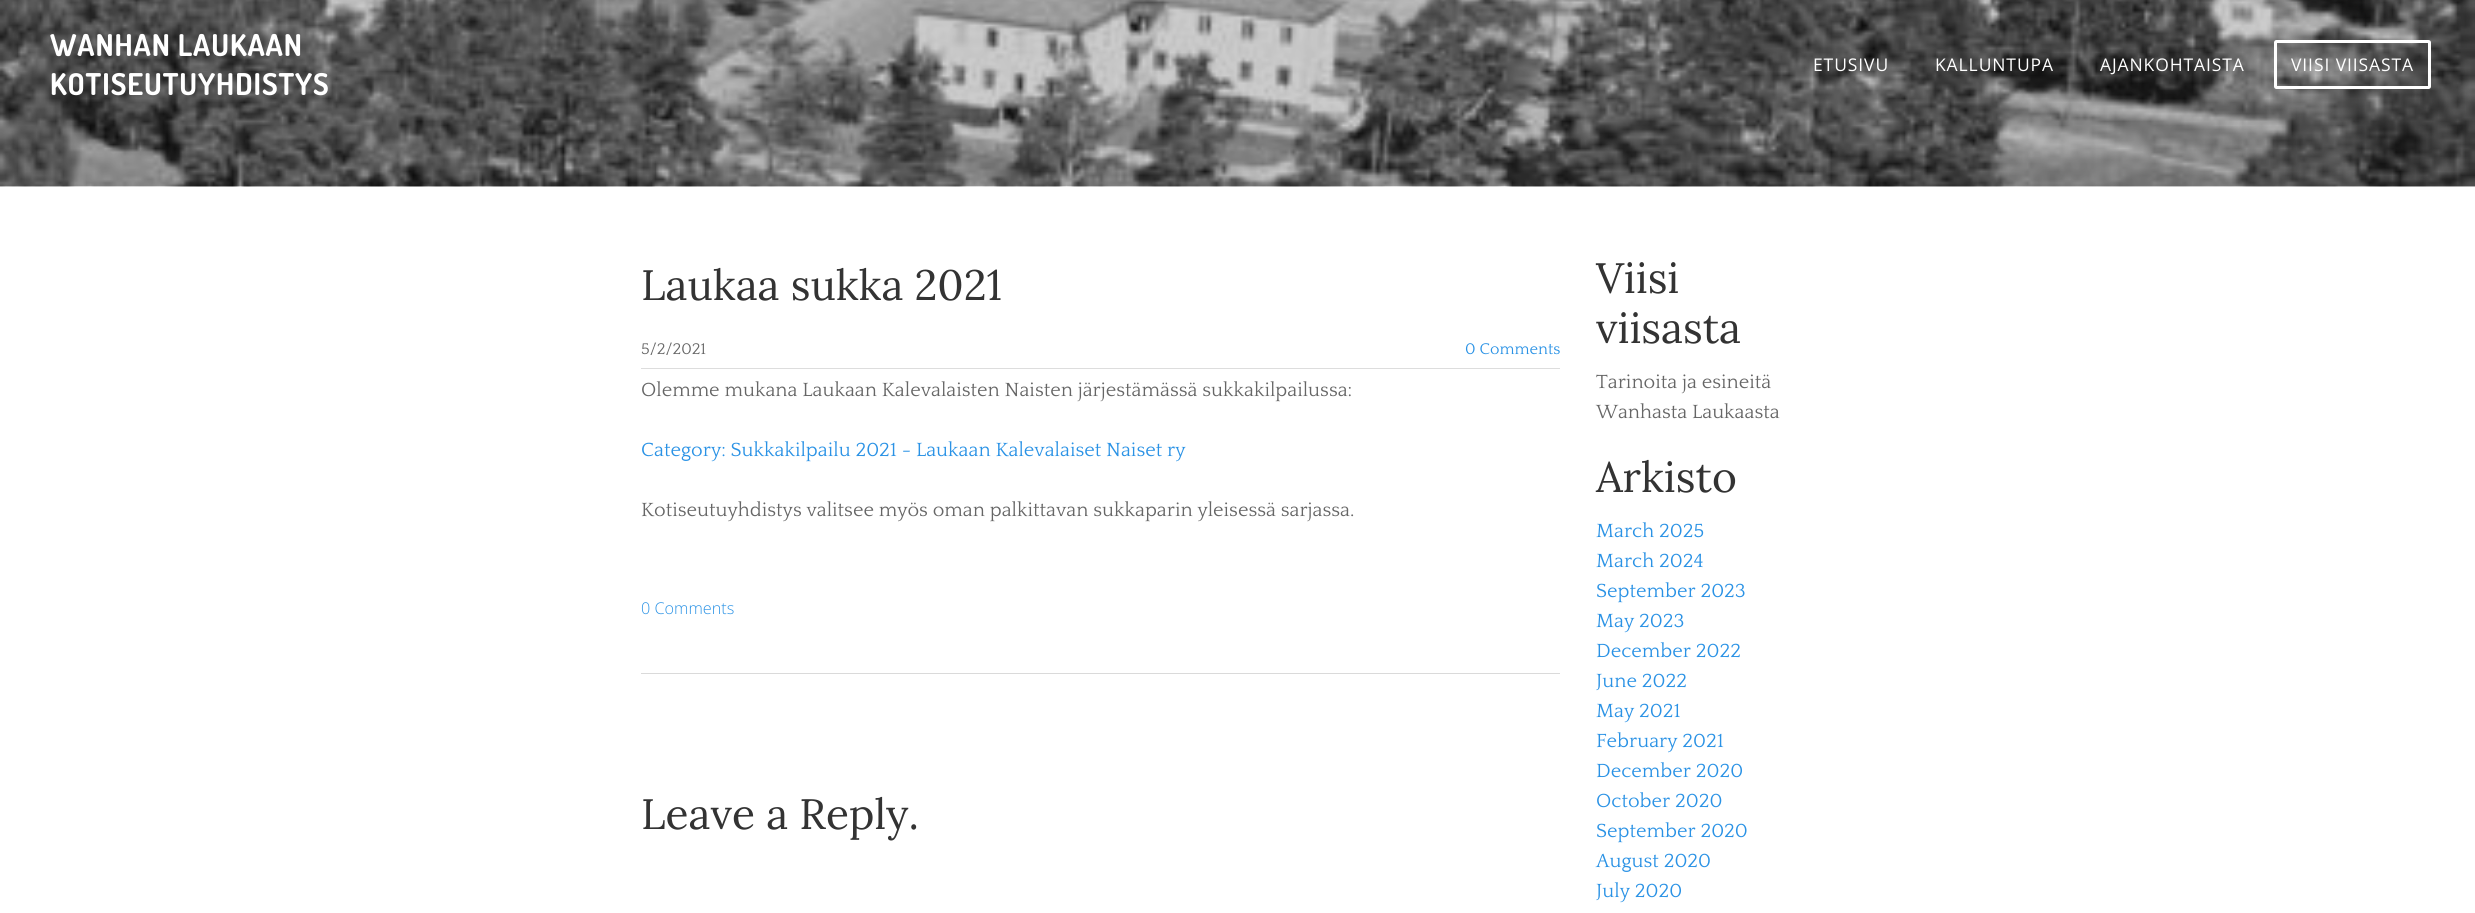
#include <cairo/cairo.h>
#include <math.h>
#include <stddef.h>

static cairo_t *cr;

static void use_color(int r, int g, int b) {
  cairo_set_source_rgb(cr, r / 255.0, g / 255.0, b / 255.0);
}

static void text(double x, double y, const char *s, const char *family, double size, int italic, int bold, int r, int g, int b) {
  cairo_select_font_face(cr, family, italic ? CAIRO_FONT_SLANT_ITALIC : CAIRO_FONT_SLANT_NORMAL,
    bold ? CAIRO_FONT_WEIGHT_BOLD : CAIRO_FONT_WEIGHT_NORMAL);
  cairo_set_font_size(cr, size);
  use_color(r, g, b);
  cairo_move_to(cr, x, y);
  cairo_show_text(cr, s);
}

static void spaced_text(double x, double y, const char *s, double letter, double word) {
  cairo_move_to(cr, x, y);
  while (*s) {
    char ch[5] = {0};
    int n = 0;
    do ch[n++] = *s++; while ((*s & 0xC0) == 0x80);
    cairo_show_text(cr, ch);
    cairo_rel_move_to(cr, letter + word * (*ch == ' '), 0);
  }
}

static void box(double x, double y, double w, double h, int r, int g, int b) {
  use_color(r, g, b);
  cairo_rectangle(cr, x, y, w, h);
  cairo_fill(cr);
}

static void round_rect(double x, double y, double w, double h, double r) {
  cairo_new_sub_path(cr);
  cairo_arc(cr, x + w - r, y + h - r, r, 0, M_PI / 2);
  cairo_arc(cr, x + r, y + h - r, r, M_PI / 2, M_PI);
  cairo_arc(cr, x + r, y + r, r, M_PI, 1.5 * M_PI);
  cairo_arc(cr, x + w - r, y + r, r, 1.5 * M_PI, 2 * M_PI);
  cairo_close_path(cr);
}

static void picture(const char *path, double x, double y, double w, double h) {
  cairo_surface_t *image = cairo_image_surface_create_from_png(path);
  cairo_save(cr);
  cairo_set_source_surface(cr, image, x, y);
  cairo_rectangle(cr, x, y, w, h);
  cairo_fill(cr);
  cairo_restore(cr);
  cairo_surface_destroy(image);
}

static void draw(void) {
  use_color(255, 255, 255);
  cairo_paint(cr);
  picture("img_01.png", 0, 0, 2475, 187);
  round_rect(2275.5, 41.5, 154, 46, 1);
  use_color(255, 255, 255);
  cairo_set_line_width(cr, 3);
  cairo_stroke(cr);
  box(641, 368, 919, 1, 221, 221, 221);
  box(641, 673, 919, 1, 218, 218, 218);
  cairo_select_font_face(cr, "Dosis", CAIRO_FONT_SLANT_NORMAL, CAIRO_FONT_WEIGHT_BOLD);
  cairo_set_font_size(cr, 30);
  use_color(255, 255, 255);
  spaced_text(50, 56, "WANHAN LAUKAAN", 0.9, 0);
  spaced_text(50, 95, "KOTISEUTUYHDISTYS", 0.9, 0);
  cairo_select_font_face(cr, "Open Sans", CAIRO_FONT_SLANT_NORMAL, CAIRO_FONT_WEIGHT_NORMAL);
  cairo_set_font_size(cr, 17.5);
  spaced_text(1813, 71, "ETUSIVU", 0.9, 0);
  spaced_text(1935, 71, "KALLUNTUPA", 0.9, 0);
  spaced_text(2100, 71, "AJANKOHTAISTA", 0.9, 0);
  spaced_text(2291, 71, "VIISI VIISASTA", 0.9, 0);
  text(641, 300, "Laukaa sukka 2021", "Lora", 42.5, 0, 0, 51, 51, 51);
  text(641, 354, "5/2/2021", "Quattrocento", 16.25, 0, 0, 102, 102, 102);
  text(1465, 354, "0 Comments", "Quattrocento", 16.25, 0, 0, 42, 146, 229);
  text(641, 396, "Olemme mukana Laukaan Kalevalaisten Naisten järjestämässä sukkakilpailussa:", "Quattrocento", 20, 0, 0, 102, 102, 102);
  text(641, 456, "Category: Sukkakilpailu 2021 - Laukaan Kalevalaiset Naiset ry", "Quattrocento", 20, 0, 0, 42, 146, 229);
  text(641, 516, "Kotiseutuyhdistys valitsee myös oman palkittavan sukkaparin yleisessä sarjassa.", "Quattrocento", 20, 0, 0, 102, 102, 102);
  text(641, 614, "0 Comments", "Open Sans Light", 16.25, 0, 0, 42, 146, 229);
  text(641, 829, "Leave a Reply.", "Lora", 42.5, 0, 0, 51, 51, 51);
  text(1596, 293, "Viisi", "Lora", 42.5, 0, 0, 51, 51, 51);
  text(1596, 343, "viisasta", "Lora", 42.5, 0, 0, 51, 51, 51);
  text(1596, 388, "Tarinoita ja esineitä", "Quattrocento", 20, 0, 0, 102, 102, 102);
  text(1596, 418, "Wanhasta Laukaasta", "Quattrocento", 20, 0, 0, 102, 102, 102);
  text(1596, 492, "Arkisto", "Lora", 42.5, 0, 0, 51, 51, 51);
  text(1596, 537, "March 2025", "Quattrocento", 20, 0, 0, 42, 146, 229);
  text(1596, 567, "March 2024", "Quattrocento", 20, 0, 0, 42, 146, 229);
  text(1596, 597, "September 2023", "Quattrocento", 20, 0, 0, 42, 146, 229);
  text(1596, 627, "May 2023", "Quattrocento", 20, 0, 0, 42, 146, 229);
  text(1596, 657, "December 2022", "Quattrocento", 20, 0, 0, 42, 146, 229);
  text(1596, 687, "June 2022", "Quattrocento", 20, 0, 0, 42, 146, 229);
  text(1596, 717, "May 2021", "Quattrocento", 20, 0, 0, 42, 146, 229);
  text(1596, 747, "February 2021", "Quattrocento", 20, 0, 0, 42, 146, 229);
  text(1596, 777, "December 2020", "Quattrocento", 20, 0, 0, 42, 146, 229);
  text(1596, 807, "October 2020", "Quattrocento", 20, 0, 0, 42, 146, 229);
  text(1596, 837, "September 2020", "Quattrocento", 20, 0, 0, 42, 146, 229);
  text(1596, 867, "August 2020", "Quattrocento", 20, 0, 0, 42, 146, 229);
  text(1596, 897, "July 2020", "Quattrocento", 20, 0, 0, 42, 146, 229);
}

int main(void) {
  cairo_surface_t *surface = cairo_image_surface_create(CAIRO_FORMAT_RGB24, 2475, 913);
  cr = cairo_create(surface);
  cairo_font_options_t *options = cairo_font_options_create();
  cairo_font_options_set_hint_metrics(options, CAIRO_HINT_METRICS_OFF);
  cairo_font_options_set_hint_style(options, CAIRO_HINT_STYLE_NONE);
  cairo_set_font_options(cr, options);
  cairo_set_miter_limit(cr, 4);
  draw();
  cairo_surface_write_to_png(surface, "out.png");
  cairo_font_options_destroy(options);
  cairo_destroy(cr);
  cairo_surface_destroy(surface);
  return 0;
}
